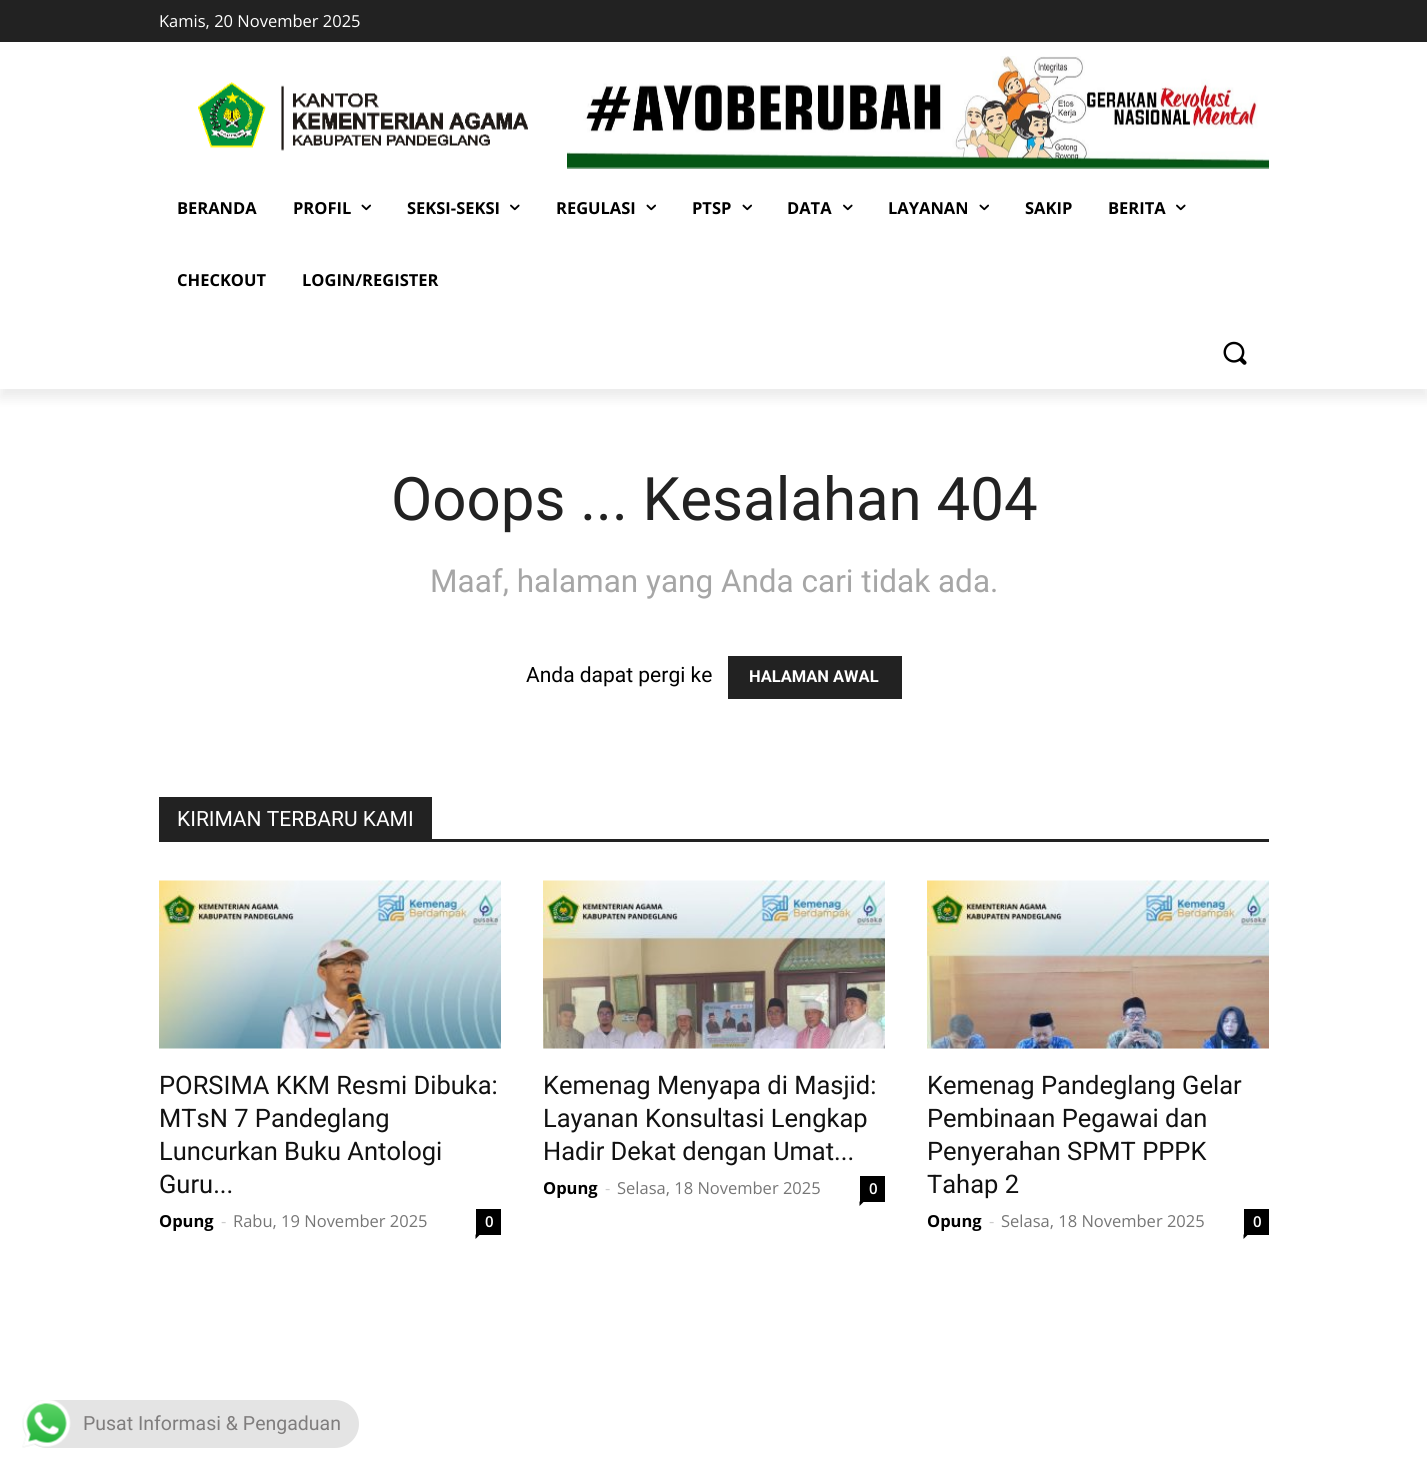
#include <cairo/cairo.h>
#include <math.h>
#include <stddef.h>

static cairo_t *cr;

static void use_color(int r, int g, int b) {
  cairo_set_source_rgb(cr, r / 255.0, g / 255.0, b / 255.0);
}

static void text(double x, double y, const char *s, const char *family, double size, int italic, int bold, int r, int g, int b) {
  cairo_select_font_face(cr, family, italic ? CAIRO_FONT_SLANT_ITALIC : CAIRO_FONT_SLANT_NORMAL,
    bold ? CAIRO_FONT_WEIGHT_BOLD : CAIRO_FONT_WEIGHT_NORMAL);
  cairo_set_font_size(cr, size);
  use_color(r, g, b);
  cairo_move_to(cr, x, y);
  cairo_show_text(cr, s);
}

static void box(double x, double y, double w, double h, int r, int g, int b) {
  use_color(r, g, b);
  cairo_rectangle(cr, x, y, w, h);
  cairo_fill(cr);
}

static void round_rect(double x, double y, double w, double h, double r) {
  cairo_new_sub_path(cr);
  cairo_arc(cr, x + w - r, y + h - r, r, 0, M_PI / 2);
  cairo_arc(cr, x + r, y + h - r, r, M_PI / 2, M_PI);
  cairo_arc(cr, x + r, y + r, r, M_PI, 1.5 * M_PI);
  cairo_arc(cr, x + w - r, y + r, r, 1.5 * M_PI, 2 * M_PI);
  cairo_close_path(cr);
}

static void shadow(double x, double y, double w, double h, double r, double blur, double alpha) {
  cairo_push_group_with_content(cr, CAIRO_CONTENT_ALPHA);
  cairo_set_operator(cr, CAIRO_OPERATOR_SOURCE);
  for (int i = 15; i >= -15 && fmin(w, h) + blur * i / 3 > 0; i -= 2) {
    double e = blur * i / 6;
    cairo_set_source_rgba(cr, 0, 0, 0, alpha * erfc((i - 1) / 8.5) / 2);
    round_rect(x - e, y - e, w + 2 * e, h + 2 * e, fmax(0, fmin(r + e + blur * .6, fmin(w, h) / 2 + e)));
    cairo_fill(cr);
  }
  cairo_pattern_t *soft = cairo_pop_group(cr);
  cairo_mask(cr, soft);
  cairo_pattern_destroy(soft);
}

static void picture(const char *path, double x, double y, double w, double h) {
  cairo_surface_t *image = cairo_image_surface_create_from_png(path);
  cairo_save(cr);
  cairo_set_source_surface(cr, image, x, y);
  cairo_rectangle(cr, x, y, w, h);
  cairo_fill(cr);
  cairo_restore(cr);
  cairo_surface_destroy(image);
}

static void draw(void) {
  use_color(255, 255, 255);
  cairo_paint(cr);
  box(0, 0, 1427, 42, 34, 34, 34);
  picture("img_01.png", 198, 82, 330, 69);
  picture("img_02.png", 567, 56, 702, 113);
  cairo_save(cr);
  cairo_set_fill_rule(cr, CAIRO_FILL_RULE_EVEN_ODD);
  cairo_new_path(cr);
  cairo_move_to(cr, 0, 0);
  cairo_line_to(cr, 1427, 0);
  cairo_line_to(cr, 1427, 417);
  cairo_line_to(cr, 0, 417);
  cairo_close_path(cr);
  cairo_move_to(cr, 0, 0);
  cairo_line_to(cr, 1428, 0);
  cairo_line_to(cr, 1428, 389);
  cairo_line_to(cr, 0, 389);
  cairo_close_path(cr);
  cairo_clip(cr);
  use_color(0, 0, 0);
  shadow(0, 9, 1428, 389, 0, 6, 0.08);
  cairo_restore(cr);
  picture("img_03.png", 361, 204, 10, 7);
  picture("img_04.png", 510, 204, 10, 7);
  picture("img_03.png", 646, 204, 10, 7);
  picture("img_03.png", 742, 204, 10, 7);
  picture("img_04.png", 843, 204, 10, 7);
  picture("img_03.png", 979, 204, 10, 7);
  picture("img_04.png", 1176, 204, 10, 7);
  picture("img_05.png", 1223, 341, 24, 24);
  box(728, 656, 174, 43, 34, 34, 34);
  box(159, 839, 1110, 3, 34, 34, 34);
  box(159, 797, 273, 42, 34, 34, 34);
  picture("img_06.png", 159, 880, 342, 169);
  box(476, 1209, 25, 26, 0, 0, 0);
  cairo_new_path(cr);
  cairo_move_to(cr, 475.5, 1234.5);
  cairo_line_to(cr, 480, 1234.5);
  cairo_line_to(cr, 475.5, 1239);
  cairo_close_path(cr);
  cairo_fill(cr);
  picture("img_07.png", 543, 880, 342, 169);
  box(860, 1176, 25, 26, 0, 0, 0);
  cairo_new_path(cr);
  cairo_move_to(cr, 859.5, 1201.5);
  cairo_line_to(cr, 864, 1201.5);
  cairo_line_to(cr, 859.5, 1206);
  cairo_close_path(cr);
  cairo_fill(cr);
  picture("img_08.png", 927, 880, 342, 169);
  box(1244, 1209, 25, 26, 0, 0, 0);
  cairo_new_path(cr);
  cairo_move_to(cr, 1243.5, 1234.5);
  cairo_line_to(cr, 1248, 1234.5);
  cairo_line_to(cr, 1243.5, 1239);
  cairo_close_path(cr);
  cairo_fill(cr);
  use_color(228, 228, 228);
  round_rect(23, 1400, 336, 48, 24);
  cairo_fill(cr);
  picture("img_09.png", 22, 1400, 49, 48);
  text(159, 27, "Kamis, 20 November 2025", "Open Sans", 16.5, 0, 0, 255, 255, 255);
  text(177, 214, "BERANDA", "Open Sans", 16.5, 0, 1, 0, 0, 0);
  text(293, 214, "PROFIL", "Open Sans", 16.5, 0, 1, 0, 0, 0);
  text(407, 214, "SEKSI-SEKSI", "Open Sans", 16.5, 0, 1, 0, 0, 0);
  text(556, 214, "REGULASI", "Open Sans", 16.5, 0, 1, 0, 0, 0);
  text(692, 214, "PTSP", "Open Sans", 16.5, 0, 1, 0, 0, 0);
  text(787, 214, "DATA", "Open Sans", 16.5, 0, 1, 0, 0, 0);
  text(888, 214, "LAYANAN", "Open Sans", 16.5, 0, 1, 0, 0, 0);
  text(1025, 214, "SAKIP", "Open Sans", 16.5, 0, 1, 0, 0, 0);
  text(1108, 214, "BERITA", "Open Sans", 16.5, 0, 1, 0, 0, 0);
  text(177, 286, "CHECKOUT", "Open Sans", 16.5, 0, 1, 0, 0, 0);
  text(302, 286, "LOGIN/REGISTER", "Open Sans", 16.5, 0, 1, 0, 0, 0);
  text(391, 520, "Ooops ... Kesalahan 404", "Roboto", 60, 0, 0, 34, 34, 34);
  text(430, 592, "Maaf, halaman yang Anda cari tidak ada.", "Roboto", 31.5, 0, 0, 166, 166, 166);
  text(526, 682, "Anda dapat pergi ke", "Roboto", 21, 0, 0, 0, 0, 0);
  text(749, 682, "HALAMAN AWAL", "Roboto", 16.5, 0, 1, 255, 255, 255);
  text(177, 826, "KIRIMAN TERBARU KAMI", "Roboto", 21, 0, 0, 255, 255, 255);
  text(159, 1094, "PORSIMA KKM Resmi Dibuka:", "Roboto", 25.5, 0, 0, 17, 17, 17);
  text(159, 1127, "MTsN 7 Pandeglang", "Roboto", 25.5, 0, 0, 17, 17, 17);
  text(159, 1160, "Luncurkan Buku Antologi", "Roboto", 25.5, 0, 0, 17, 17, 17);
  text(159, 1193, "Guru...", "Roboto", 25.5, 0, 0, 17, 17, 17);
  text(159, 1227, "Opung", "Open Sans", 16.5, 0, 1, 0, 0, 0);
  text(221, 1227, "-", "Open Sans", 16.5, 0, 0, 204, 204, 204);
  text(233, 1227, "Rabu, 19 November 2025", "Open Sans", 16.5, 0, 0, 118, 118, 118);
  text(485, 1227, "0", "Open Sans SemiBold", 15, 0, 0, 255, 255, 255);
  text(543, 1094, "Kemenag Menyapa di Masjid:", "Roboto", 25.5, 0, 0, 17, 17, 17);
  text(543, 1127, "Layanan Konsultasi Lengkap", "Roboto", 25.5, 0, 0, 17, 17, 17);
  text(543, 1160, "Hadir Dekat dengan Umat...", "Roboto", 25.5, 0, 0, 17, 17, 17);
  text(543, 1194, "Opung", "Open Sans", 16.5, 0, 1, 0, 0, 0);
  text(605, 1194, "-", "Open Sans", 16.5, 0, 0, 204, 204, 204);
  text(617, 1194, "Selasa, 18 November 2025", "Open Sans", 16.5, 0, 0, 118, 118, 118);
  text(869, 1194, "0", "Open Sans SemiBold", 15, 0, 0, 255, 255, 255);
  text(927, 1094, "Kemenag Pandeglang Gelar", "Roboto", 25.5, 0, 0, 17, 17, 17);
  text(927, 1127, "Pembinaan Pegawai dan", "Roboto", 25.5, 0, 0, 17, 17, 17);
  text(927, 1160, "Penyerahan SPMT PPPK", "Roboto", 25.5, 0, 0, 17, 17, 17);
  text(927, 1193, "Tahap 2", "Roboto", 25.5, 0, 0, 17, 17, 17);
  text(927, 1227, "Opung", "Open Sans", 16.5, 0, 1, 0, 0, 0);
  text(989, 1227, "-", "Open Sans", 16.5, 0, 0, 204, 204, 204);
  text(1001, 1227, "Selasa, 18 November 2025", "Open Sans", 16.5, 0, 0, 118, 118, 118);
  text(1253, 1227, "0", "Open Sans SemiBold", 15, 0, 0, 255, 255, 255);
  text(83, 1430, "Pusat Informasi & Pengaduan", "Roboto", 19.5, 0, 0, 127, 125, 125);
}

int main(void) {
  cairo_surface_t *surface = cairo_image_surface_create(CAIRO_FORMAT_RGB24, 1427, 1469);
  cr = cairo_create(surface);
  cairo_font_options_t *options = cairo_font_options_create();
  cairo_font_options_set_hint_metrics(options, CAIRO_HINT_METRICS_OFF);
  cairo_font_options_set_hint_style(options, CAIRO_HINT_STYLE_NONE);
  cairo_set_font_options(cr, options);
  cairo_set_miter_limit(cr, 4);
  draw();
  cairo_surface_write_to_png(surface, "out.png");
  cairo_font_options_destroy(options);
  cairo_destroy(cr);
  cairo_surface_destroy(surface);
  return 0;
}
